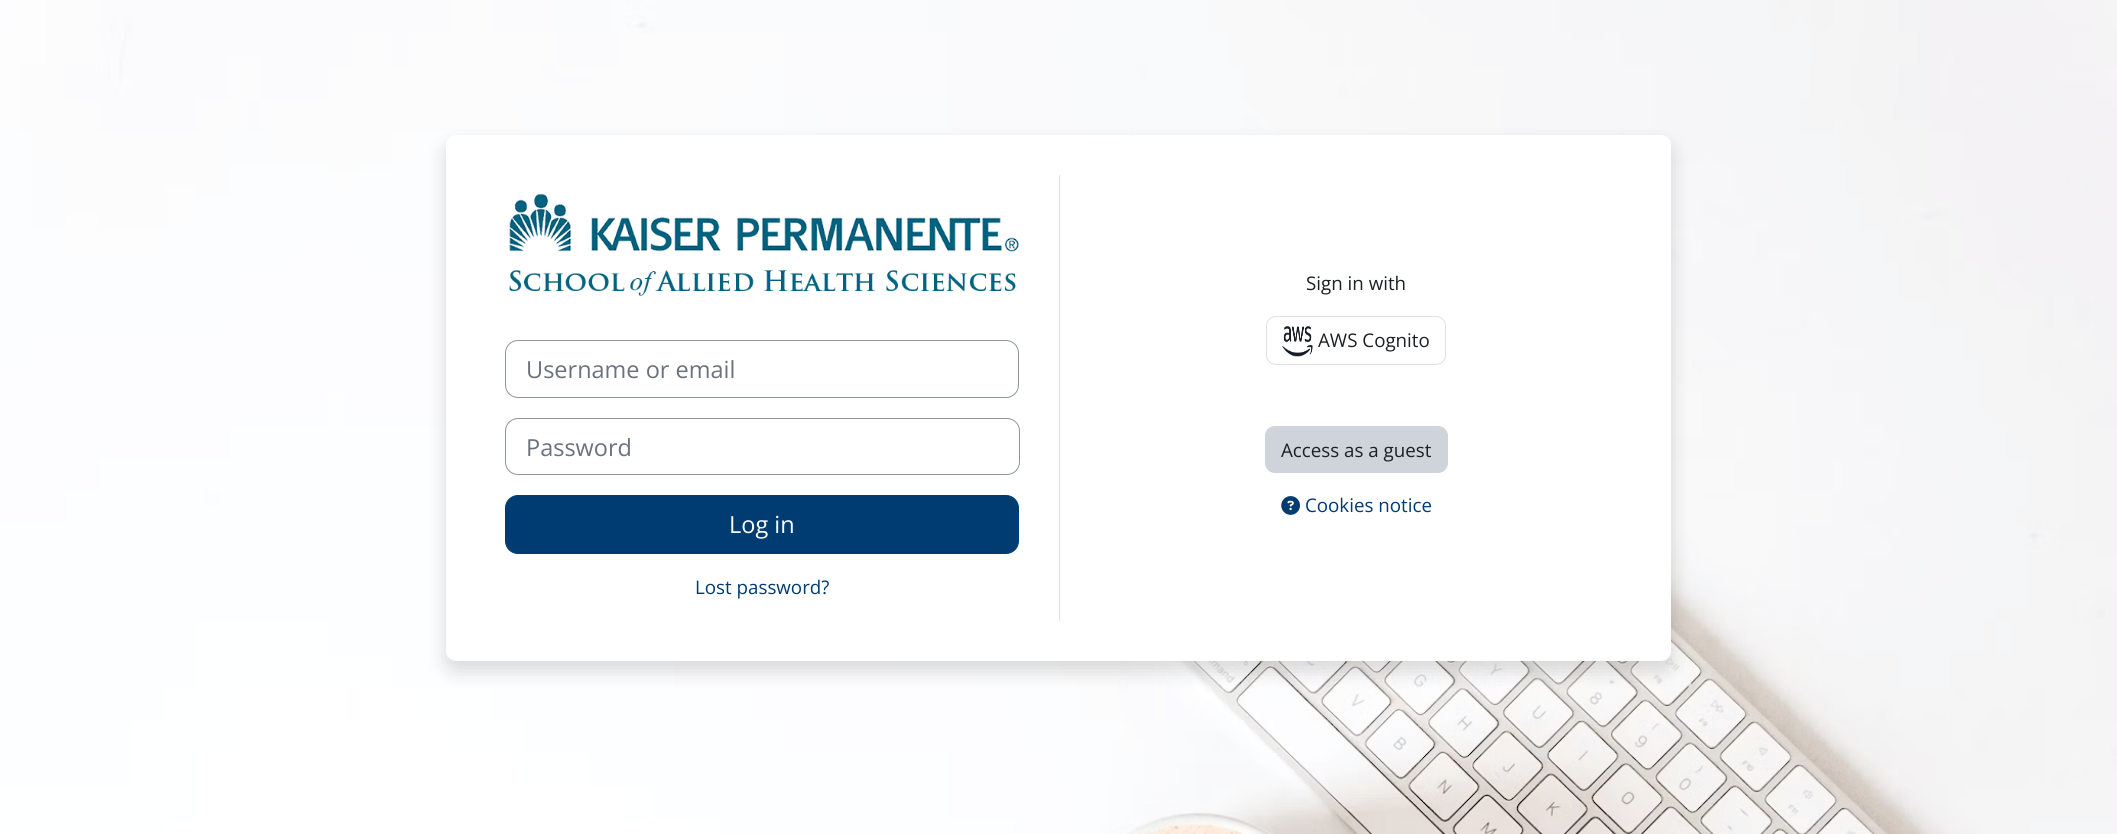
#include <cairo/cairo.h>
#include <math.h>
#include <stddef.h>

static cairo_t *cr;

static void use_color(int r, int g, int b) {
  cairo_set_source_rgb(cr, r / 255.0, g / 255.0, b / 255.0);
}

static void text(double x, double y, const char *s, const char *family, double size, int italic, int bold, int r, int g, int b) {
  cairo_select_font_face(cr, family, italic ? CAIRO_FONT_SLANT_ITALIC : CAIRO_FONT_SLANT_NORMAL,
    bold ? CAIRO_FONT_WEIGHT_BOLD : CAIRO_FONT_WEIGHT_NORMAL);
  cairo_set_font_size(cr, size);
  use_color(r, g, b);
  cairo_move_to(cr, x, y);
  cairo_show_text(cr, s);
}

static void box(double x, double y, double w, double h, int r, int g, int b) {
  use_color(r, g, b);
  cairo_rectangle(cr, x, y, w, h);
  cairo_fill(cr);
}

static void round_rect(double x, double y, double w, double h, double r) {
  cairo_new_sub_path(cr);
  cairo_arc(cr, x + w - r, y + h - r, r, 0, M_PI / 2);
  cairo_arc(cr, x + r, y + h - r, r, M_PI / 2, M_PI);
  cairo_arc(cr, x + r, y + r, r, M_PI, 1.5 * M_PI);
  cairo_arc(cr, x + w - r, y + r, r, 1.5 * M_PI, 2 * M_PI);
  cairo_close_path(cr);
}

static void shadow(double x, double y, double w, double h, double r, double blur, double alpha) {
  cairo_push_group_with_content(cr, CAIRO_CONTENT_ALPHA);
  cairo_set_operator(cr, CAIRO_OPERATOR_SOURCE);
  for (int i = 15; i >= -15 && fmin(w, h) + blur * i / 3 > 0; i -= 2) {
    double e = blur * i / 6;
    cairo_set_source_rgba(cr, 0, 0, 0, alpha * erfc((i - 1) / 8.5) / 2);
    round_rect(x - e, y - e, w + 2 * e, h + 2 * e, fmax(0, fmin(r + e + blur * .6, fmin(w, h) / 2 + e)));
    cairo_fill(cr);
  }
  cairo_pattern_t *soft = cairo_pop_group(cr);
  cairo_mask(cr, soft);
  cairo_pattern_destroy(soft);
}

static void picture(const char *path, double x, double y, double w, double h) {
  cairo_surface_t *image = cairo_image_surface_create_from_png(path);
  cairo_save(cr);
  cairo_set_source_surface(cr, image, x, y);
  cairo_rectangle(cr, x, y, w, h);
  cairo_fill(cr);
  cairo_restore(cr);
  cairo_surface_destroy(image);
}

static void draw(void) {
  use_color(255, 255, 255);
  cairo_paint(cr);
  picture("img_01.png", 0, 0, 2117, 834);
  use_color(0, 0, 0);
  shadow(446, 145, 1225, 526, 10, 10, 0.15);
  use_color(255, 255, 255);
  round_rect(446, 135, 1225, 526, 10);
  cairo_fill(cr);
  picture("img_02.png", 509, 194, 510, 102);
  round_rect(505.5, 340.5, 513, 57, 12.5);
  use_color(143, 149, 158);
  cairo_set_line_width(cr, 1);
  cairo_stroke(cr);
  round_rect(505.5, 418.5, 514, 56, 12.5);
  cairo_stroke(cr);
  use_color(0, 59, 113);
  round_rect(505.5, 495.5, 513, 58, 12.5);
  cairo_fill_preserve(cr);
  cairo_stroke(cr);
  box(1059, 175, 1, 446, 222, 226, 230);
  round_rect(1266.5, 316.5, 179, 48, 9.5);
  cairo_stroke(cr);
  picture("img_03.png", 1282, 326, 31, 31);
  use_color(206, 212, 218);
  round_rect(1265.5, 426.5, 182, 46, 9.5);
  cairo_fill_preserve(cr);
  cairo_stroke(cr);
  picture("img_04.png", 1281, 496, 19, 19);
  text(526, 378, "Username or email", "Open Sans", 23.5, 0, 0, 106, 115, 123);
  text(526, 456, "Password", "Open Sans", 23.5, 0, 0, 106, 115, 123);
  text(729, 533, "Log in", "Open Sans", 23.5, 0, 0, 255, 255, 255);
  text(695, 594, "Lost password?", "Open Sans", 18.75, 0, 0, 0, 59, 113);
  text(1306, 290, "Sign in with", "Open Sans", 18.75, 0, 0, 29, 33, 37);
  text(1318, 347, "AWS Cognito", "Open Sans", 18.75, 0, 0, 29, 33, 37);
  text(1281, 457, "Access as a guest", "Open Sans", 18.75, 0, 0, 29, 33, 37);
  text(1305, 512, "Cookies notice", "Open Sans", 18.75, 0, 0, 0, 59, 113);
}

int main(void) {
  cairo_surface_t *surface = cairo_image_surface_create(CAIRO_FORMAT_RGB24, 2117, 834);
  cr = cairo_create(surface);
  cairo_font_options_t *options = cairo_font_options_create();
  cairo_font_options_set_hint_metrics(options, CAIRO_HINT_METRICS_OFF);
  cairo_font_options_set_hint_style(options, CAIRO_HINT_STYLE_NONE);
  cairo_set_font_options(cr, options);
  cairo_set_miter_limit(cr, 4);
  draw();
  cairo_surface_write_to_png(surface, "out.png");
  cairo_font_options_destroy(options);
  cairo_destroy(cr);
  cairo_surface_destroy(surface);
  return 0;
}
